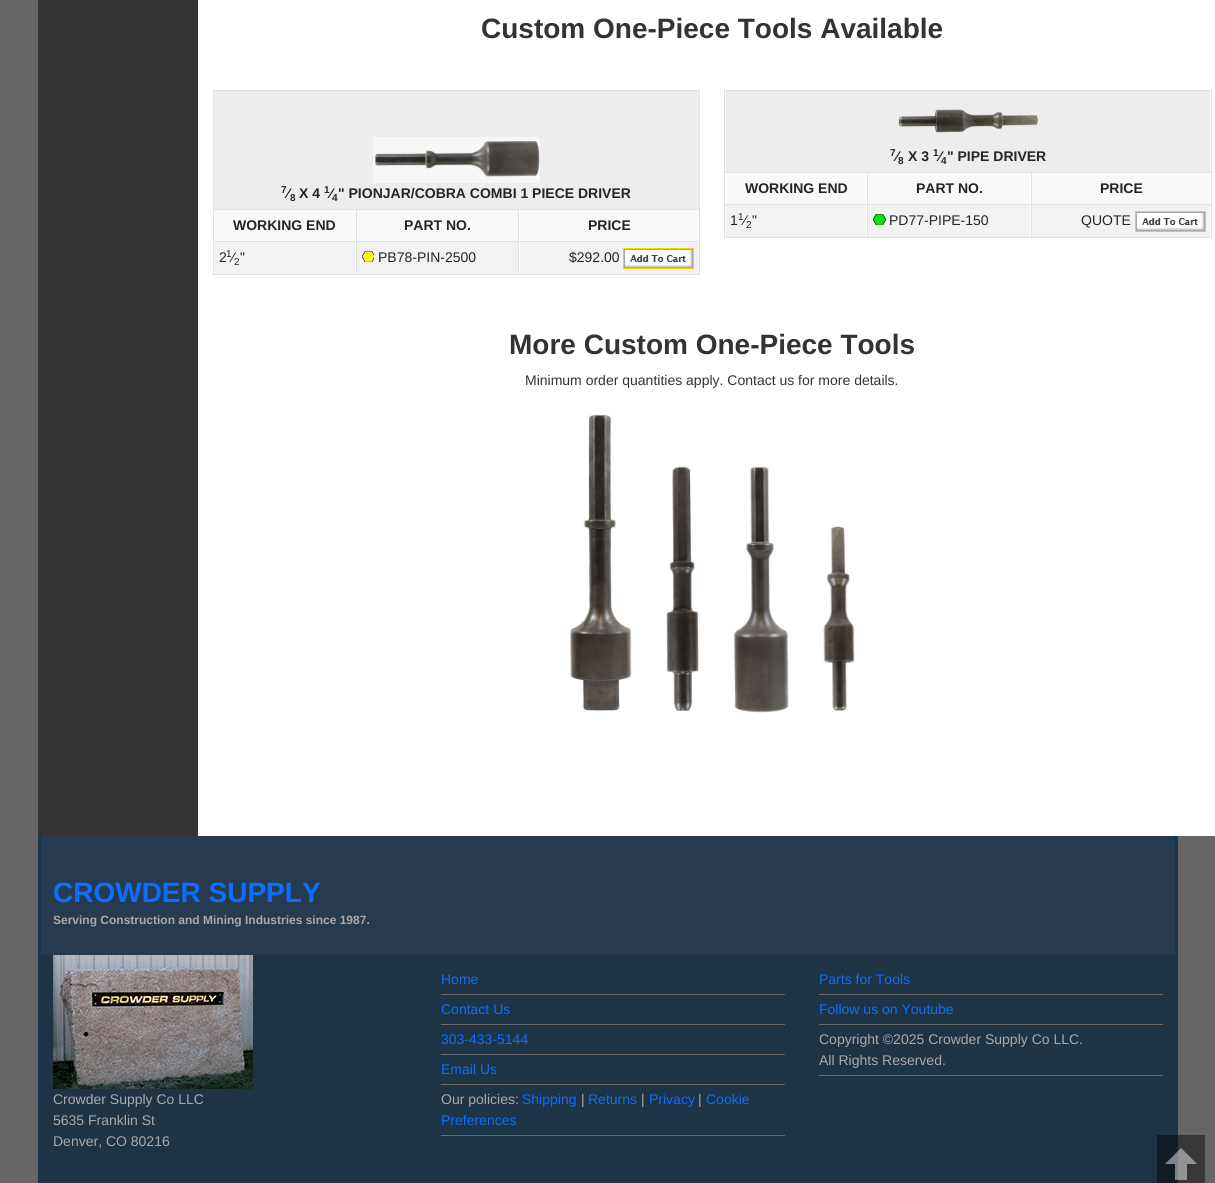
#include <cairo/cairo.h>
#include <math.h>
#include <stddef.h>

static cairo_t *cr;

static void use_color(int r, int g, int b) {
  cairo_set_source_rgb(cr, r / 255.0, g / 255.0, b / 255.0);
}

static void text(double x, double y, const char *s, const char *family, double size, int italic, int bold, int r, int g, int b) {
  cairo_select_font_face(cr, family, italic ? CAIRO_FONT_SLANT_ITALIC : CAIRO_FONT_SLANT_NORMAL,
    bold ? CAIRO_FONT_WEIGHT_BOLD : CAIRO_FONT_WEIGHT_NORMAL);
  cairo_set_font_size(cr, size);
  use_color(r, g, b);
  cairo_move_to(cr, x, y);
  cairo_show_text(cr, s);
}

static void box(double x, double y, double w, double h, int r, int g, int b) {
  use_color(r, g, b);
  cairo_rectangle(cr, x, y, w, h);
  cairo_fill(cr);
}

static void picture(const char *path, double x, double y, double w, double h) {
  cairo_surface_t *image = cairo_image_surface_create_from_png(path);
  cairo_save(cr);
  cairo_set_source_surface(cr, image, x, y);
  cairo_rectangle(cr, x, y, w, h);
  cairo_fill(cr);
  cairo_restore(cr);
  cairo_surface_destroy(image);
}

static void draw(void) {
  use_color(102, 102, 102);
  cairo_paint(cr);
  box(1178, 1135, 27, 48, 55, 55, 55);
  box(38, 0, 160, 836, 51, 51, 51);
  box(198, 0, 1017, 836, 255, 255, 255);
  box(213, 90, 487, 1, 222, 226, 230);
  box(214, 91, 485, 118, 237, 237, 237);
  picture("img_01.png", 373, 137, 167, 46);
  box(213, 209, 487, 1, 222, 226, 230);
  box(214, 210, 141, 31, 249, 249, 249);
  box(357, 210, 161, 31, 249, 249, 249);
  box(520, 210, 179, 31, 249, 249, 249);
  box(213, 241, 487, 1, 222, 226, 230);
  box(213, 274, 487, 1, 222, 226, 230);
  box(214, 242, 141, 32, 242, 242, 242);
  box(213, 90, 1, 185, 222, 226, 230);
  box(357, 242, 161, 32, 242, 242, 242);
  box(356, 209, 1, 66, 222, 226, 230);
  picture("img_02.png", 362, 251, 12, 11);
  box(520, 242, 179, 32, 242, 242, 242);
  box(699, 90, 1, 185, 222, 226, 230);
  box(518, 209, 1, 66, 222, 226, 230);
  cairo_rectangle(cr, 623.5, 248.5, 70, 20);
  use_color(255, 204, 0);
  cairo_set_line_width(cr, 1);
  cairo_stroke(cr);
  picture("img_03.png", 624, 249, 69, 19);
  box(724, 90, 488, 1, 222, 226, 230);
  box(726, 91, 484, 81, 237, 237, 237);
  picture("img_04.png", 898, 109, 140, 24);
  box(724, 172, 488, 1, 222, 226, 230);
  box(726, 173, 140, 31, 249, 249, 249);
  box(868, 173, 162, 31, 249, 249, 249);
  box(1032, 173, 178, 31, 249, 249, 249);
  box(724, 204, 488, 1, 222, 226, 230);
  box(724, 237, 488, 1, 222, 226, 230);
  box(726, 205, 140, 32, 242, 242, 242);
  box(724, 90, 1, 148, 222, 226, 230);
  box(868, 205, 162, 32, 242, 242, 242);
  box(867, 172, 1, 66, 222, 226, 230);
  picture("img_05.png", 873, 214, 13, 11);
  box(1032, 205, 178, 32, 242, 242, 242);
  box(1211, 90, 1, 148, 222, 226, 230);
  box(1031, 172, 1, 66, 222, 226, 230);
  cairo_rectangle(cr, 1135.5, 211.5, 70, 20);
  use_color(255, 204, 0);
  cairo_stroke(cr);
  picture("img_03.png", 1136, 212, 69, 19);
  picture("img_06.png", 570, 414, 285, 299);
  box(38, 836, 1140, 347, 29, 51, 70);
  box(1157, 1135, 21, 48, 16, 28, 38);
  box(41, 836, 1134, 119, 38, 59, 79);
  picture("img_07.png", 53, 955, 200, 134);
  box(441, 994, 344, 1, 102, 102, 102);
  box(441, 1024, 344, 1, 102, 102, 102);
  box(441, 1054, 344, 1, 102, 102, 102);
  box(441, 1084, 344, 1, 102, 102, 102);
  box(441, 1135, 344, 1, 102, 102, 102);
  box(819, 994, 344, 1, 102, 102, 102);
  box(819, 1024, 344, 1, 102, 102, 102);
  box(819, 1075, 344, 1, 102, 102, 102);
  cairo_set_source_rgba(cr, 1, 1, 1, 0.46);
  cairo_new_path(cr);
  cairo_move_to(cr, 1181, 1148);
  cairo_line_to(cr, 1165, 1164);
  cairo_line_to(cr, 1175, 1164);
  cairo_line_to(cr, 1175, 1180);
  cairo_line_to(cr, 1187, 1180);
  cairo_line_to(cr, 1187, 1164);
  cairo_line_to(cr, 1197, 1164);
  cairo_close_path(cr);
  cairo_fill(cr);
  text(481, 38, "Custom One-Piece Tools Available", "Liberation Sans", 28, 0, 1, 51, 51, 51);
  text(338, 198, "\" PIONJAR/COBRA COMBI 1 PIECE DRIVER", "Liberation Sans", 14, 0, 1, 33, 37, 41);
  text(287, 198, "⁄", "Liberation Sans", 14, 0, 1, 33, 37, 41);
  text(281, 193, "7", "Liberation Sans", 10, 0, 1, 33, 37, 41);
  text(299, 198, "X 4", "Liberation Sans", 14, 0, 1, 33, 37, 41);
  text(330, 198, "⁄", "Liberation Sans", 14, 0, 1, 33, 37, 41);
  text(324, 193, "1", "Liberation Sans", 10, 0, 1, 33, 37, 41);
  text(290, 201, "8", "Liberation Sans", 10, 0, 1, 33, 37, 41);
  text(332, 201, "4", "Liberation Sans", 10, 0, 1, 33, 37, 41);
  text(233, 230, "WORKING END", "Liberation Sans", 14, 0, 1, 33, 37, 41);
  text(404, 230, "PART NO.", "Liberation Sans", 14, 0, 1, 33, 37, 41);
  text(588, 230, "PRICE", "Liberation Sans", 14, 0, 1, 33, 37, 41);
  text(219, 262, "2", "Liberation Sans", 14, 0, 0, 33, 37, 41);
  text(232, 262, "⁄", "Liberation Sans", 14, 0, 0, 33, 37, 41);
  text(226, 257, "1", "Liberation Sans", 10, 0, 0, 33, 37, 41);
  text(240, 262, "\"", "Liberation Sans", 14, 0, 0, 33, 37, 41);
  text(234, 265, "2", "Liberation Sans", 10, 0, 0, 33, 37, 41);
  text(378, 262, "PB78-PIN-2500", "Liberation Sans", 14, 0, 0, 33, 37, 41);
  text(569, 262, "$292.00", "Liberation Sans", 14, 0, 0, 33, 37, 41);
  text(896, 161, "⁄", "Liberation Sans", 14, 0, 1, 33, 37, 41);
  text(890, 156, "7", "Liberation Sans", 10, 0, 1, 33, 37, 41);
  text(908, 161, "X 3", "Liberation Sans", 14, 0, 1, 33, 37, 41);
  text(939, 161, "⁄", "Liberation Sans", 14, 0, 1, 33, 37, 41);
  text(933, 156, "1", "Liberation Sans", 10, 0, 1, 33, 37, 41);
  text(947, 161, "\" PIPE DRIVER", "Liberation Sans", 14, 0, 1, 33, 37, 41);
  text(898, 164, "8", "Liberation Sans", 10, 0, 1, 33, 37, 41);
  text(941, 164, "4", "Liberation Sans", 10, 0, 1, 33, 37, 41);
  text(745, 193, "WORKING END", "Liberation Sans", 14, 0, 1, 33, 37, 41);
  text(916, 193, "PART NO.", "Liberation Sans", 14, 0, 1, 33, 37, 41);
  text(1100, 193, "PRICE", "Liberation Sans", 14, 0, 1, 33, 37, 41);
  text(730, 225, "1", "Liberation Sans", 14, 0, 0, 33, 37, 41);
  text(744, 225, "⁄", "Liberation Sans", 14, 0, 0, 33, 37, 41);
  text(738, 220, "1", "Liberation Sans", 10, 0, 0, 33, 37, 41);
  text(752, 225, "\"", "Liberation Sans", 14, 0, 0, 33, 37, 41);
  text(746, 228, "2", "Liberation Sans", 10, 0, 0, 33, 37, 41);
  text(889, 225, "PD77-PIPE-150", "Liberation Sans", 14, 0, 0, 33, 37, 41);
  text(1081, 225, "QUOTE", "Liberation Sans", 14, 0, 0, 33, 37, 41);
  text(509, 354, "More Custom One-Piece Tools", "Liberation Sans", 28, 0, 1, 51, 51, 51);
  text(525, 385, "Minimum order quantities apply. Contact us for more details.", "Liberation Sans", 14, 0, 0, 51, 51, 51);
  text(53, 902, "CROWDER SUPPLY", "Liberation Sans", 28, 0, 1, 13, 110, 253);
  text(53, 924, "Serving Construction and Mining Industries since 1987.", "Liberation Sans", 12, 0, 1, 170, 170, 170);
  text(53, 1104, "Crowder Supply Co LLC", "Liberation Sans", 14, 0, 0, 170, 170, 170);
  text(53, 1125, "5635 Franklin St", "Liberation Sans", 14, 0, 0, 170, 170, 170);
  text(53, 1146, "Denver, CO 80216", "Liberation Sans", 14, 0, 0, 170, 170, 170);
  text(441, 984, "Home", "Liberation Sans", 14, 0, 0, 13, 110, 253);
  text(441, 1014, "Contact Us", "Liberation Sans", 14, 0, 0, 13, 110, 253);
  text(441, 1044, "303-433-5144", "Liberation Sans", 14, 0, 0, 13, 110, 253);
  text(441, 1074, "Email Us", "Liberation Sans", 14, 0, 0, 13, 110, 253);
  text(441, 1104, "Our policies:", "Liberation Sans", 14, 0, 0, 170, 170, 170);
  text(522, 1104, "Shipping", "Liberation Sans", 14, 0, 0, 13, 110, 253);
  text(581, 1104, "|", "Liberation Sans", 14, 0, 0, 170, 170, 170);
  text(588, 1104, "Returns", "Liberation Sans", 14, 0, 0, 13, 110, 253);
  text(641, 1104, "|", "Liberation Sans", 14, 0, 0, 170, 170, 170);
  text(649, 1104, "Privacy", "Liberation Sans", 14, 0, 0, 13, 110, 253);
  text(698, 1104, "|", "Liberation Sans", 14, 0, 0, 170, 170, 170);
  text(706, 1104, "Cookie", "Liberation Sans", 14, 0, 0, 13, 110, 253);
  text(441, 1125, "Preferences", "Liberation Sans", 14, 0, 0, 13, 110, 253);
  text(819, 984, "Parts for Tools", "Liberation Sans", 14, 0, 0, 13, 110, 253);
  text(819, 1014, "Follow us on Youtube", "Liberation Sans", 14, 0, 0, 13, 110, 253);
  text(819, 1044, "Copyright ©2025 Crowder Supply Co LLC.", "Liberation Sans", 14, 0, 0, 170, 170, 170);
  text(819, 1065, "All Rights Reserved.", "Liberation Sans", 14, 0, 0, 170, 170, 170);
}

int main(void) {
  cairo_surface_t *surface = cairo_image_surface_create(CAIRO_FORMAT_RGB24, 1215, 1183);
  cr = cairo_create(surface);
  cairo_font_options_t *options = cairo_font_options_create();
  cairo_font_options_set_hint_metrics(options, CAIRO_HINT_METRICS_OFF);
  cairo_font_options_set_hint_style(options, CAIRO_HINT_STYLE_NONE);
  cairo_set_font_options(cr, options);
  cairo_set_miter_limit(cr, 4);
  draw();
  cairo_surface_write_to_png(surface, "out.png");
  cairo_font_options_destroy(options);
  cairo_destroy(cr);
  cairo_surface_destroy(surface);
  return 0;
}
